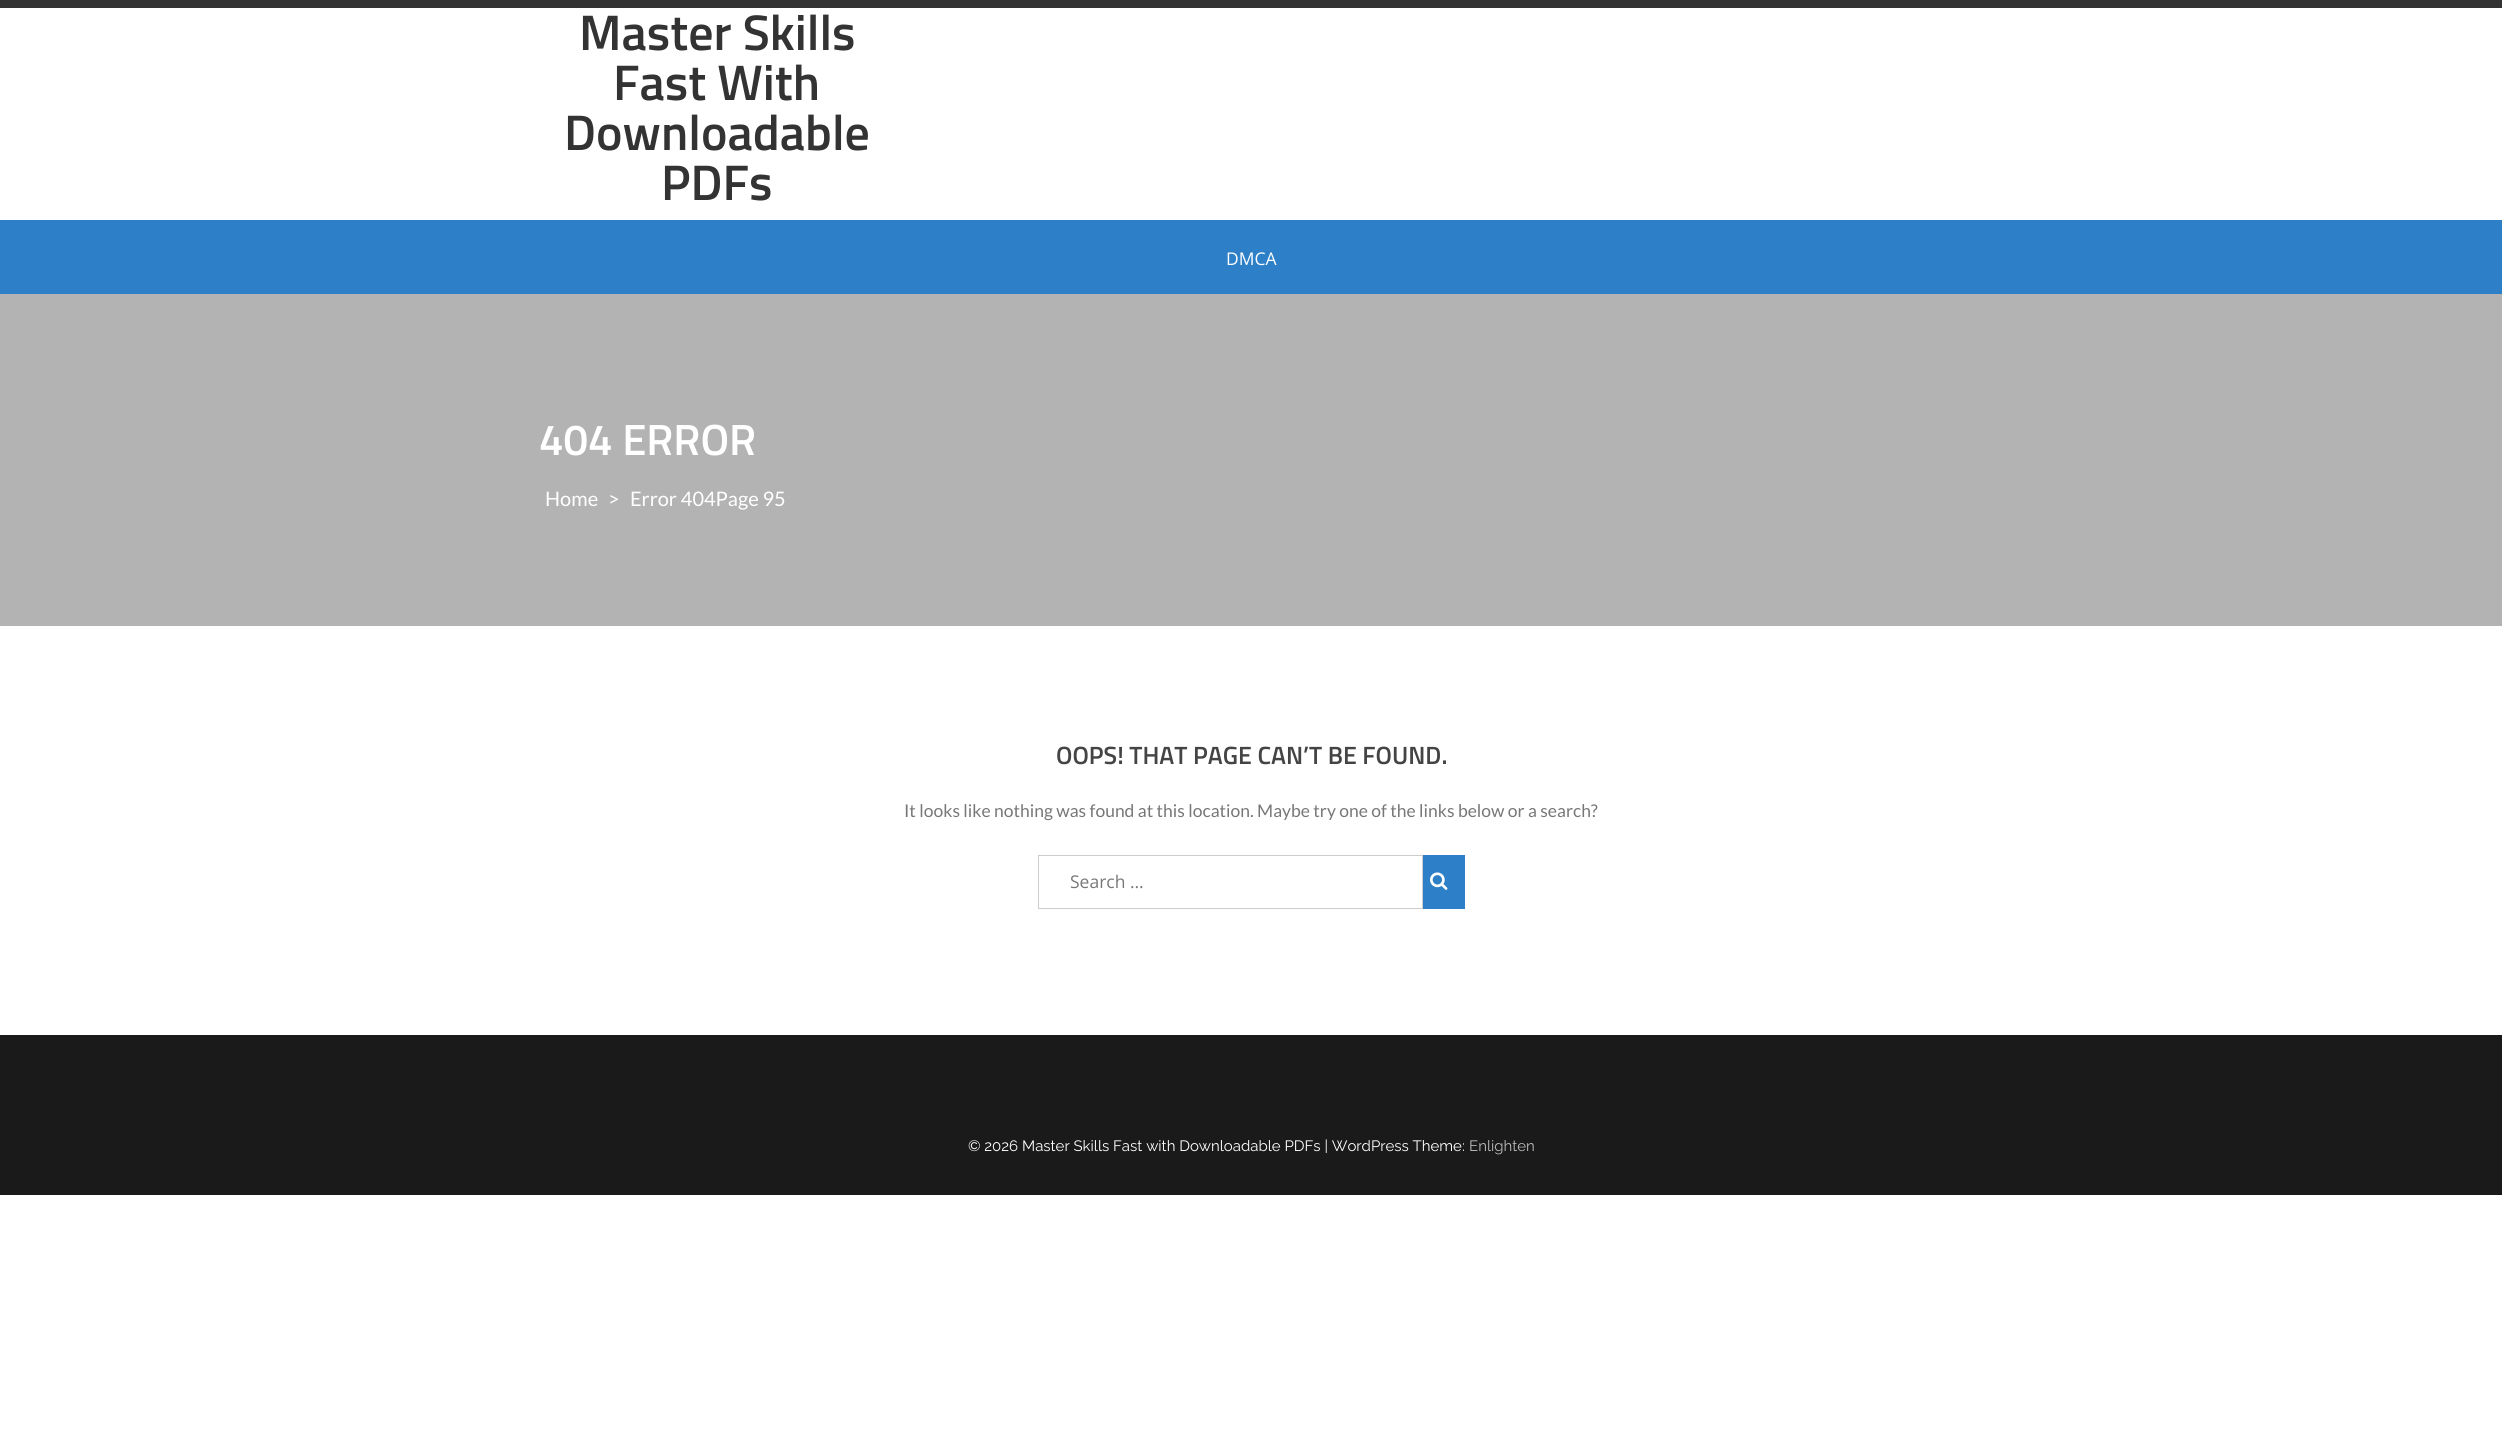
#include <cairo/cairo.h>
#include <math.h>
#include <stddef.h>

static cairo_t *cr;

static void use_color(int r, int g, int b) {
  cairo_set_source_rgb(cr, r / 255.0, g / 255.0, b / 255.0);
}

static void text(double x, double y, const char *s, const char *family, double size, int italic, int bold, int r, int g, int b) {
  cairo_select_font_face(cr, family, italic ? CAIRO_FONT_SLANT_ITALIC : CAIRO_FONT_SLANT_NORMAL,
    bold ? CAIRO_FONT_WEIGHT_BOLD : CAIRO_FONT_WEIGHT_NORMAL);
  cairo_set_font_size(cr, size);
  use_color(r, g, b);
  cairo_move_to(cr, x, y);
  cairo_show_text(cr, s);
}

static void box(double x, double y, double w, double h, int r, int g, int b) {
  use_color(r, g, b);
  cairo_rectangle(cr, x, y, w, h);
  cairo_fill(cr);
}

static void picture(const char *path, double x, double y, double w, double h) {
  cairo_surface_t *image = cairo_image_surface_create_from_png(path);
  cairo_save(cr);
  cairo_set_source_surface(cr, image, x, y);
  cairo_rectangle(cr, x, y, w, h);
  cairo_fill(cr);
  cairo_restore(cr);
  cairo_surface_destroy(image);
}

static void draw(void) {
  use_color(255, 255, 255);
  cairo_paint(cr);
  box(0, 0, 2502, 8, 51, 51, 51);
  box(0, 220, 2502, 74, 45, 127, 199);
  box(0, 294, 2502, 332, 179, 179, 179);
  box(1423, 855, 42, 54, 45, 127, 199);
  cairo_rectangle(cr, 1038.5, 855.5, 384, 53);
  use_color(204, 204, 204);
  cairo_set_line_width(cr, 1);
  cairo_stroke(cr);
  picture("img_01.png", 1430, 872, 18, 18);
  box(0, 1035, 2502, 160, 26, 26, 26);
  text(579, 50, "Master Skills", "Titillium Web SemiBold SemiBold", 50, 0, 0, 51, 51, 51);
  text(613, 100, "Fast With", "Titillium Web SemiBold SemiBold", 50, 0, 0, 51, 51, 51);
  text(564, 150, "Downloadable", "Titillium Web SemiBold SemiBold", 50, 0, 0, 51, 51, 51);
  text(661, 200, "PDFs", "Titillium Web SemiBold SemiBold", 50, 0, 0, 51, 51, 51);
  text(1226, 265, "DMCA", "Open Sans", 17.5, 0, 0, 255, 255, 255);
  text(539, 455, "404 ERROR", "Titillium Web SemiBold SemiBold", 43.75, 0, 0, 255, 255, 255);
  text(545, 506, "Home", "Lato", 20, 0, 0, 255, 255, 255);
  text(608, 506, ">", "Lato", 20, 0, 0, 255, 255, 255);
  text(630, 506, "Error 404Page 95", "Lato", 20, 0, 0, 255, 255, 255);
  text(1056, 764, "OOPS! THAT PAGE CAN’T BE FOUND.", "Titillium Web SemiBold SemiBold", 25, 0, 0, 68, 68, 68);
  text(904, 817, "It looks like nothing was found at this location. Maybe try one of the links below or a search?", "Lato", 17.5, 0, 0, 119, 119, 119);
  text(1070, 888, "Search …", "Open Sans", 17.5, 0, 0, 119, 119, 119);
  text(968, 1151, "© 2026 Master Skills Fast with Downloadable PDFs | WordPress Theme:", "Raleway", 15, 0, 0, 255, 255, 255);
  text(1469, 1151, "Enlighten", "Raleway", 15, 0, 0, 186, 186, 186);
}

int main(void) {
  cairo_surface_t *surface = cairo_image_surface_create(CAIRO_FORMAT_RGB24, 2502, 1441);
  cr = cairo_create(surface);
  cairo_font_options_t *options = cairo_font_options_create();
  cairo_font_options_set_hint_metrics(options, CAIRO_HINT_METRICS_OFF);
  cairo_font_options_set_hint_style(options, CAIRO_HINT_STYLE_NONE);
  cairo_set_font_options(cr, options);
  cairo_set_miter_limit(cr, 4);
  draw();
  cairo_surface_write_to_png(surface, "out.png");
  cairo_font_options_destroy(options);
  cairo_destroy(cr);
  cairo_surface_destroy(surface);
  return 0;
}
